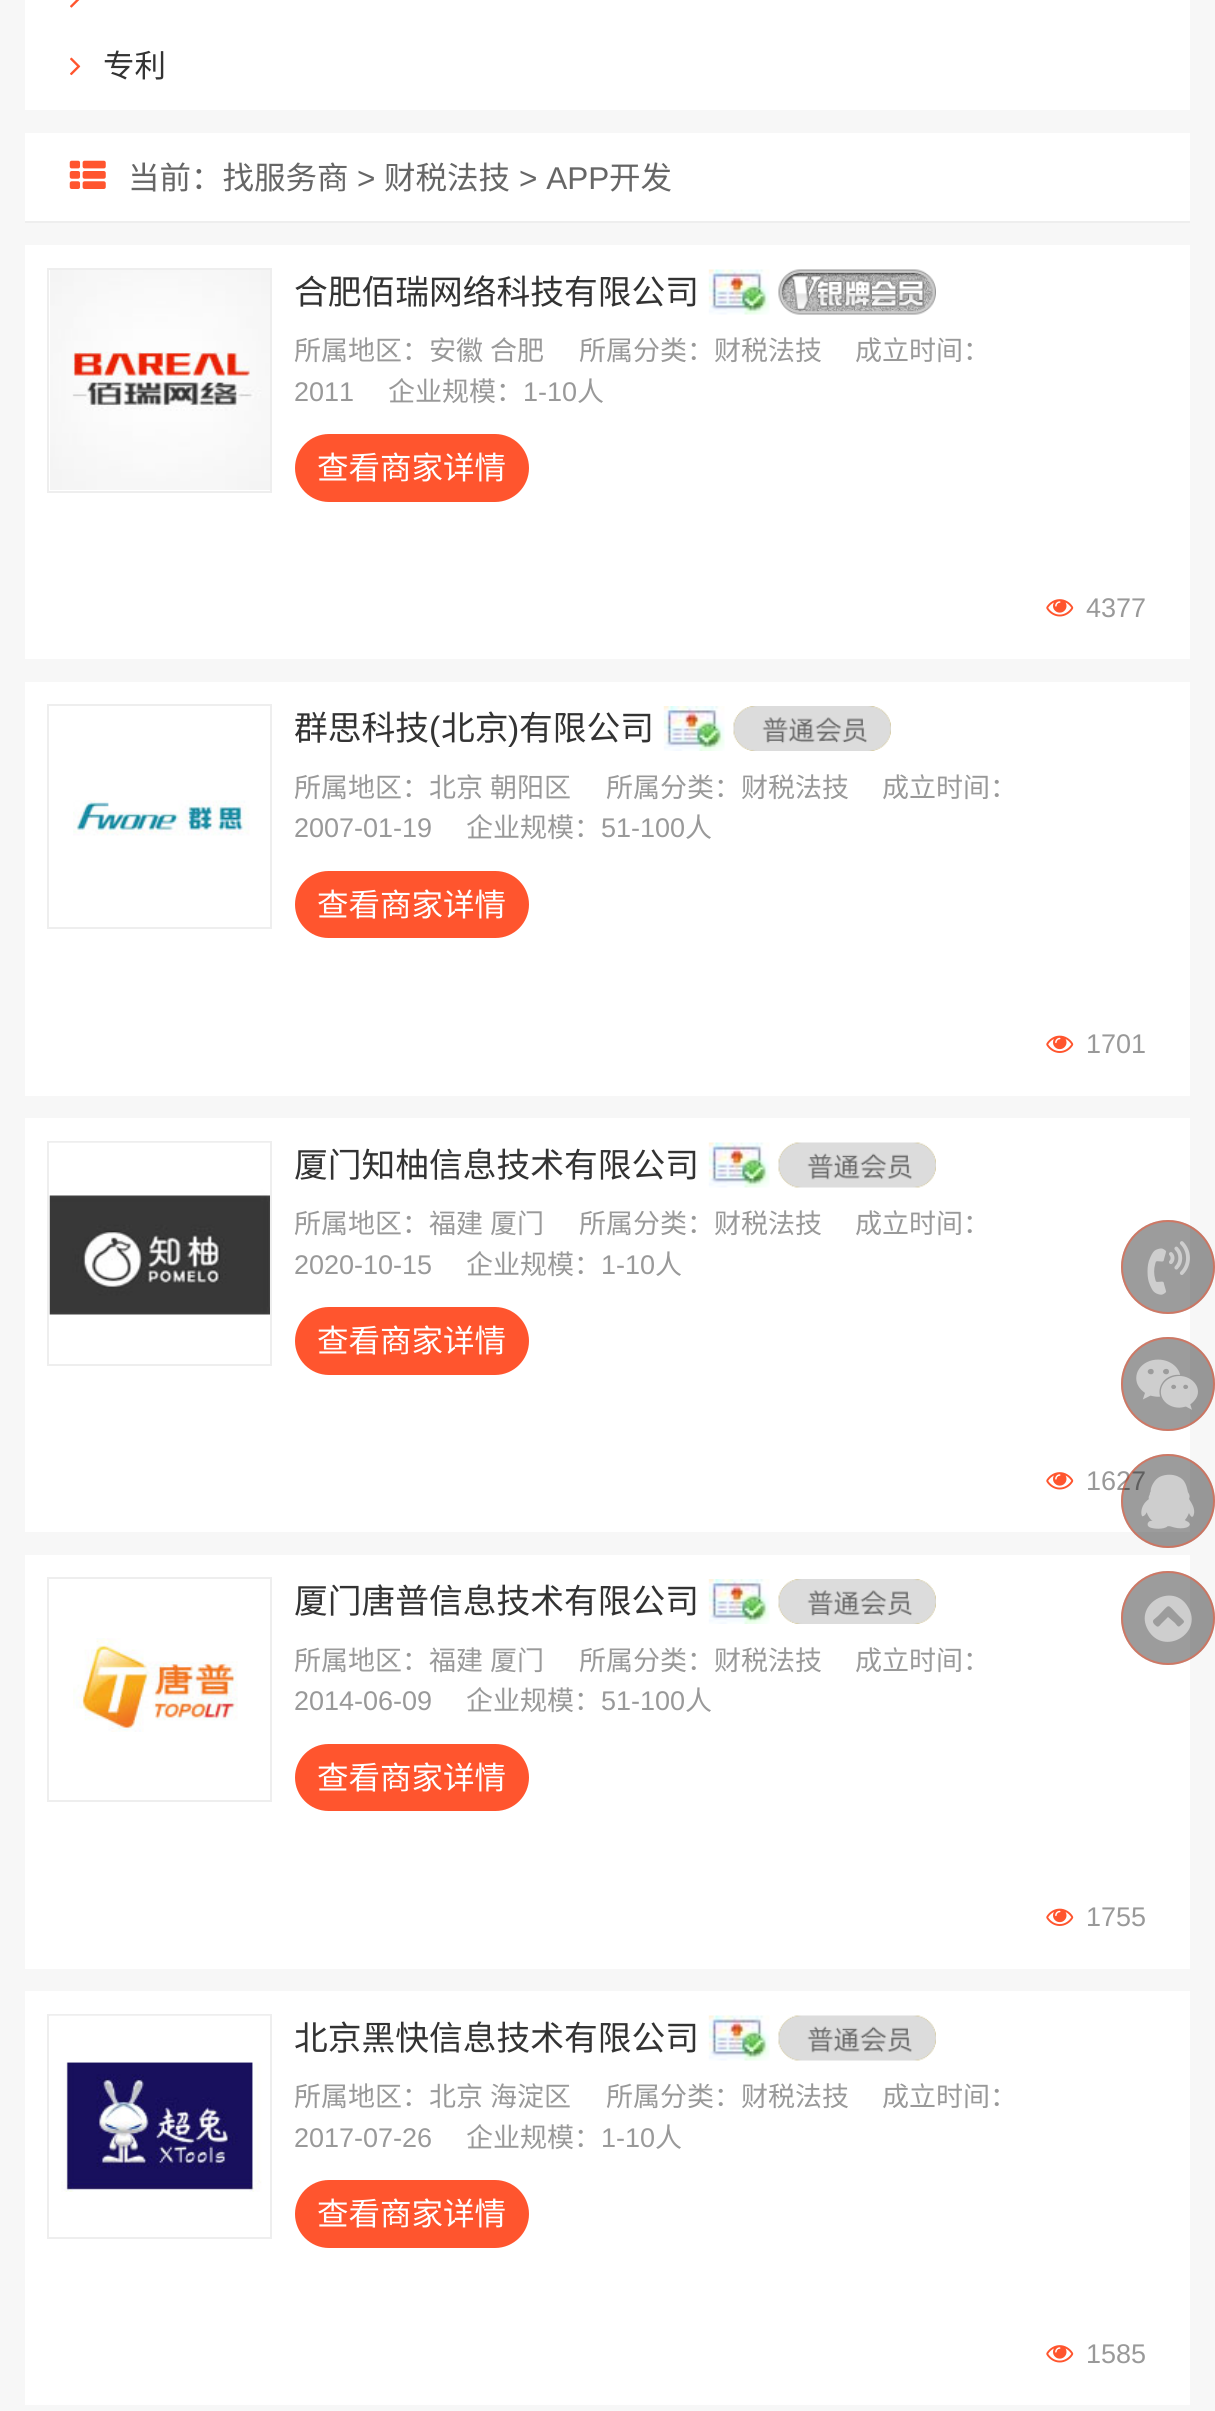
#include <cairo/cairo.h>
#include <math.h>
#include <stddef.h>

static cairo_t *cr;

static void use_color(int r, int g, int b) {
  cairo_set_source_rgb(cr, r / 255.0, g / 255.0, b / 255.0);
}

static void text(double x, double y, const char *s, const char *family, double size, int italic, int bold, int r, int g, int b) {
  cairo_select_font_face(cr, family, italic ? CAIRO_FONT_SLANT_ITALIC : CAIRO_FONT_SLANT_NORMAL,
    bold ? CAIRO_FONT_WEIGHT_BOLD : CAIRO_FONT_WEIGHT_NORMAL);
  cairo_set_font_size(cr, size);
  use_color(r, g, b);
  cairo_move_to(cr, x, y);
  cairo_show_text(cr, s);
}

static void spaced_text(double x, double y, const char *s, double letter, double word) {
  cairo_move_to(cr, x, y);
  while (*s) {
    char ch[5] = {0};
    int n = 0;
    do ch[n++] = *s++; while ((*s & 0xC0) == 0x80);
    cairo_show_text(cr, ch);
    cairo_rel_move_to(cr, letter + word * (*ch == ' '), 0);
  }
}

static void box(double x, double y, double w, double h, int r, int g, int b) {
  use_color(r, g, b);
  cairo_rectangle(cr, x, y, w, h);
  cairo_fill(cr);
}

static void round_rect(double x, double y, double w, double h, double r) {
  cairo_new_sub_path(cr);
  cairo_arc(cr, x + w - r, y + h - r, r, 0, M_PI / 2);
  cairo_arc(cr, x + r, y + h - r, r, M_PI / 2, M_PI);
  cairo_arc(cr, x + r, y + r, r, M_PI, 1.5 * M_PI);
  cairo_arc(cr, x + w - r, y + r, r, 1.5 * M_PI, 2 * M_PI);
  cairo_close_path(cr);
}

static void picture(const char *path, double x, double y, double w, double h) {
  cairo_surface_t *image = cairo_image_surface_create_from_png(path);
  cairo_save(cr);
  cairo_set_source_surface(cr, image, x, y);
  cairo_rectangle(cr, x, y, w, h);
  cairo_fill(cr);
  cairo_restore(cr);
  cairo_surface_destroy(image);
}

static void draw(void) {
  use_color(247, 247, 247);
  cairo_paint(cr);
  box(25, 0, 1165, 110, 255, 255, 255);
  picture("img_01.png", 70, 0, 10, 8);
  picture("img_02.png", 70, 57, 11, 19);
  box(25, 133, 1165, 88, 255, 255, 255);
  box(25, 221, 1165, 2, 238, 238, 238);
  picture("img_03.png", 69, 160, 37, 29);
  box(25, 245, 1165, 414, 255, 255, 255);
  cairo_rectangle(cr, 48, 269, 223, 223);
  use_color(238, 238, 238);
  cairo_stroke(cr);
  picture("img_04.png", 50, 270, 220, 220);
  picture("img_05.png", 708, 269, 62, 46);
  picture("img_06.png", 778, 269, 158, 46);
  use_color(255, 85, 46);
  round_rect(295, 434, 234, 68, 34);
  cairo_fill(cr);
  picture("img_07.png", 1046, 599, 28, 18);
  box(25, 682, 1165, 414, 255, 255, 255);
  cairo_rectangle(cr, 48, 705, 223, 223);
  use_color(238, 238, 238);
  cairo_stroke(cr);
  picture("img_08.png", 73, 800, 177, 36);
  picture("img_09.png", 663, 706, 62, 45);
  picture("img_10.png", 733, 706, 158, 45);
  use_color(255, 85, 46);
  round_rect(295, 871, 234, 67, 33.5);
  cairo_fill(cr);
  picture("img_11.png", 1046, 1035, 28, 18);
  box(25, 1118, 1165, 414, 255, 255, 255);
  cairo_rectangle(cr, 48, 1142, 223, 223);
  use_color(238, 238, 238);
  cairo_stroke(cr);
  picture("img_12.png", 49, 1142, 221, 173);
  picture("img_05.png", 708, 1142, 62, 46);
  picture("img_13.png", 778, 1142, 158, 46);
  use_color(255, 85, 46);
  round_rect(295, 1307, 234, 68, 34);
  cairo_fill(cr);
  picture("img_07.png", 1046, 1472, 28, 18);
  box(25, 1555, 1165, 414, 255, 255, 255);
  cairo_rectangle(cr, 48, 1578, 223, 223);
  use_color(238, 238, 238);
  cairo_stroke(cr);
  picture("img_14.png", 73, 1638, 165, 94);
  picture("img_15.png", 708, 1579, 62, 45);
  picture("img_16.png", 778, 1579, 158, 45);
  use_color(255, 85, 46);
  round_rect(295, 1744, 234, 67, 33.5);
  cairo_fill(cr);
  picture("img_11.png", 1046, 1908, 28, 18);
  box(25, 1991, 1165, 414, 255, 255, 255);
  cairo_rectangle(cr, 48, 2015, 223, 223);
  use_color(238, 238, 238);
  cairo_stroke(cr);
  picture("img_17.png", 50, 2015, 220, 177);
  picture("img_05.png", 708, 2015, 62, 46);
  picture("img_13.png", 778, 2015, 158, 46);
  use_color(255, 85, 46);
  round_rect(295, 2180, 234, 68, 34);
  cairo_fill(cr);
  picture("img_07.png", 1046, 2345, 28, 18);
  cairo_set_source_rgba(cr, 0.035, 0.035, 0.035, 0.4);
  cairo_arc(cr, 1168, 1267, 47, 0, 2 * M_PI);
  cairo_fill(cr);
  cairo_arc(cr, 1168, 1267, 46, 0, 2 * M_PI);
  cairo_set_source_rgba(cr, 1, 0.333, 0.18, 0.5);
  cairo_stroke(cr);
  picture("img_18.png", 1147, 1241, 43, 54);
  cairo_set_source_rgba(cr, 0.035, 0.035, 0.035, 0.4);
  cairo_arc(cr, 1168, 1384, 47, 0, 2 * M_PI);
  cairo_fill(cr);
  cairo_arc(cr, 1168, 1384, 46, 0, 2 * M_PI);
  cairo_set_source_rgba(cr, 1, 0.333, 0.18, 0.5);
  cairo_stroke(cr);
  picture("img_19.png", 1136, 1359, 62, 51);
  cairo_set_source_rgba(cr, 0.035, 0.035, 0.035, 0.4);
  cairo_arc(cr, 1168, 1618, 47, 0, 2 * M_PI);
  cairo_fill(cr);
  cairo_arc(cr, 1168, 1618, 46, 0, 2 * M_PI);
  cairo_set_source_rgba(cr, 1, 0.333, 0.18, 0.5);
  cairo_stroke(cr);
  cairo_set_source_rgba(cr, 1, 1, 1, 0.5);
  cairo_new_path(cr);
  cairo_move_to(cr, 1180, 1626);
  cairo_curve_to(cr, 1186, 1621, 1185, 1622, 1179, 1616);
  cairo_curve_to(cr, 1166, 1603, 1171, 1603, 1158, 1616);
  cairo_curve_to(cr, 1155, 1619, 1151, 1620, 1154, 1624);
  cairo_curve_to(cr, 1157, 1627, 1158, 1628, 1161, 1624);
  cairo_line_to(cr, 1168, 1617);
  cairo_line_to(cr, 1175, 1623);
  cairo_curve_to(cr, 1176, 1624, 1178, 1628, 1180, 1626);
  cairo_close_path(cr);
  cairo_move_to(cr, 1188, 1607);
  cairo_curve_to(cr, 1204, 1633, 1164, 1657, 1148, 1630);
  cairo_curve_to(cr, 1133, 1604, 1173, 1581, 1188, 1607);
  cairo_close_path(cr);
  cairo_fill(cr);
  text(103, 77, "专利", "Noto Sans CJK SC", 31.5, 0, 0, 51, 51, 51);
  text(128, 189, "当前：找服务商", "Noto Sans CJK SC", 31.5, 0, 0, 102, 102, 102);
  text(357, 189, ">", "Liberation Sans", 31.5, 0, 0, 102, 102, 102);
  text(384, 189, "财税法技", "Noto Sans CJK SC", 31.5, 0, 0, 102, 102, 102);
  text(519, 189, "> APP", "Liberation Sans", 31.5, 0, 0, 102, 102, 102);
  text(609, 189, "开发", "Noto Sans CJK SC", 31.5, 0, 0, 102, 102, 102);
  text(294, 304, "合肥佰瑞网络科技有限公司", "Noto Sans CJK SC", 33.75, 0, 0, 51, 51, 51);
  cairo_set_font_size(cr, 27);
  use_color(153, 153, 153);
  spaced_text(294, 360, "所属地区：安徽 合肥", 0, 1);
  text(579, 360, "所属分类：财税法技", "Noto Sans CJK SC", 27, 0, 0, 153, 153, 153);
  text(855, 360, "成立时间：", "Noto Sans CJK SC", 27, 0, 0, 153, 153, 153);
  text(294, 401, "2011", "Liberation Sans", 27, 0, 0, 153, 153, 153);
  text(388, 401, "企业规模：", "Noto Sans CJK SC", 27, 0, 0, 153, 153, 153);
  text(523, 401, "1-10", "Liberation Sans", 27, 0, 0, 153, 153, 153);
  text(577, 401, "人", "Noto Sans CJK SC", 27, 0, 0, 153, 153, 153);
  text(317, 479, "查看商家详情", "Noto Sans CJK SC", 31.5, 0, 0, 255, 255, 255);
  text(1086, 617, "4377", "Liberation Sans", 27, 0, 0, 153, 153, 153);
  text(294, 740, "群思科技", "Noto Sans CJK SC", 33.75, 0, 0, 51, 51, 51);
  text(429, 740, "(", "Liberation Sans", 33.75, 0, 0, 51, 51, 51);
  text(441, 740, "北京", "Noto Sans CJK SC", 33.75, 0, 0, 51, 51, 51);
  text(508, 740, ")", "Liberation Sans", 33.75, 0, 0, 51, 51, 51);
  text(519, 740, "有限公司", "Noto Sans CJK SC", 33.75, 0, 0, 51, 51, 51);
  cairo_set_font_size(cr, 27);
  use_color(153, 153, 153);
  spaced_text(294, 797, "所属地区：北京 朝阳区", 0, 1);
  text(606, 797, "所属分类：财税法技", "Noto Sans CJK SC", 27, 0, 0, 153, 153, 153);
  text(882, 797, "成立时间：", "Noto Sans CJK SC", 27, 0, 0, 153, 153, 153);
  text(294, 837, "2007-01-19", "Liberation Sans", 27, 0, 0, 153, 153, 153);
  text(466, 837, "企业规模：", "Noto Sans CJK SC", 27, 0, 0, 153, 153, 153);
  text(601, 837, "51-100", "Liberation Sans", 27, 0, 0, 153, 153, 153);
  text(685, 837, "人", "Noto Sans CJK SC", 27, 0, 0, 153, 153, 153);
  text(317, 916, "查看商家详情", "Noto Sans CJK SC", 31.5, 0, 0, 255, 255, 255);
  text(1086, 1053, "1701", "Liberation Sans", 27, 0, 0, 153, 153, 153);
  text(294, 1177, "厦门知柚信息技术有限公司", "Noto Sans CJK SC", 33.75, 0, 0, 51, 51, 51);
  cairo_set_font_size(cr, 27);
  use_color(153, 153, 153);
  spaced_text(294, 1233, "所属地区：福建 厦门", 0, 1);
  text(579, 1233, "所属分类：财税法技", "Noto Sans CJK SC", 27, 0, 0, 153, 153, 153);
  text(855, 1233, "成立时间：", "Noto Sans CJK SC", 27, 0, 0, 153, 153, 153);
  text(294, 1274, "2020-10-15", "Liberation Sans", 27, 0, 0, 153, 153, 153);
  text(466, 1274, "企业规模：", "Noto Sans CJK SC", 27, 0, 0, 153, 153, 153);
  text(601, 1274, "1-10", "Liberation Sans", 27, 0, 0, 153, 153, 153);
  text(655, 1274, "人", "Noto Sans CJK SC", 27, 0, 0, 153, 153, 153);
  text(317, 1352, "查看商家详情", "Noto Sans CJK SC", 31.5, 0, 0, 255, 255, 255);
  text(1086, 1490, "1627", "Liberation Sans", 27, 0, 0, 153, 153, 153);
  text(294, 1613, "厦门唐普信息技术有限公司", "Noto Sans CJK SC", 33.75, 0, 0, 51, 51, 51);
  cairo_set_font_size(cr, 27);
  use_color(153, 153, 153);
  spaced_text(294, 1670, "所属地区：福建 厦门", 0, 1);
  text(579, 1670, "所属分类：财税法技", "Noto Sans CJK SC", 27, 0, 0, 153, 153, 153);
  text(855, 1670, "成立时间：", "Noto Sans CJK SC", 27, 0, 0, 153, 153, 153);
  text(294, 1710, "2014-06-09", "Liberation Sans", 27, 0, 0, 153, 153, 153);
  text(466, 1710, "企业规模：", "Noto Sans CJK SC", 27, 0, 0, 153, 153, 153);
  text(601, 1710, "51-100", "Liberation Sans", 27, 0, 0, 153, 153, 153);
  text(685, 1710, "人", "Noto Sans CJK SC", 27, 0, 0, 153, 153, 153);
  text(317, 1789, "查看商家详情", "Noto Sans CJK SC", 31.5, 0, 0, 255, 255, 255);
  text(1086, 1926, "1755", "Liberation Sans", 27, 0, 0, 153, 153, 153);
  text(294, 2050, "北京黑快信息技术有限公司", "Noto Sans CJK SC", 33.75, 0, 0, 51, 51, 51);
  cairo_set_font_size(cr, 27);
  use_color(153, 153, 153);
  spaced_text(294, 2106, "所属地区：北京 海淀区", 0, 1);
  text(606, 2106, "所属分类：财税法技", "Noto Sans CJK SC", 27, 0, 0, 153, 153, 153);
  text(882, 2106, "成立时间：", "Noto Sans CJK SC", 27, 0, 0, 153, 153, 153);
  text(294, 2147, "2017-07-26", "Liberation Sans", 27, 0, 0, 153, 153, 153);
  text(466, 2147, "企业规模：", "Noto Sans CJK SC", 27, 0, 0, 153, 153, 153);
  text(601, 2147, "1-10", "Liberation Sans", 27, 0, 0, 153, 153, 153);
  text(655, 2147, "人", "Noto Sans CJK SC", 27, 0, 0, 153, 153, 153);
  text(317, 2225, "查看商家详情", "Noto Sans CJK SC", 31.5, 0, 0, 255, 255, 255);
  text(1086, 2363, "1585", "Liberation Sans", 27, 0, 0, 153, 153, 153);
  cairo_set_source_rgba(cr, 0.035, 0.035, 0.035, 0.4);
  cairo_new_path(cr);
  cairo_arc(cr, 1168, 1501, 47, 0, 2 * M_PI);
  cairo_fill(cr);
  cairo_arc(cr, 1168, 1501, 46, 0, 2 * M_PI);
  cairo_set_source_rgba(cr, 1, 0.333, 0.18, 0.5);
  cairo_stroke(cr);
  picture("img_20.png", 1141, 1474, 54, 55);
}

int main(void) {
  cairo_surface_t *surface = cairo_image_surface_create(CAIRO_FORMAT_RGB24, 1215, 2411);
  cr = cairo_create(surface);
  cairo_font_options_t *options = cairo_font_options_create();
  cairo_font_options_set_hint_metrics(options, CAIRO_HINT_METRICS_OFF);
  cairo_font_options_set_hint_style(options, CAIRO_HINT_STYLE_NONE);
  cairo_set_font_options(cr, options);
  cairo_set_miter_limit(cr, 4);
  draw();
  cairo_surface_write_to_png(surface, "out.png");
  cairo_font_options_destroy(options);
  cairo_destroy(cr);
  cairo_surface_destroy(surface);
  return 0;
}
